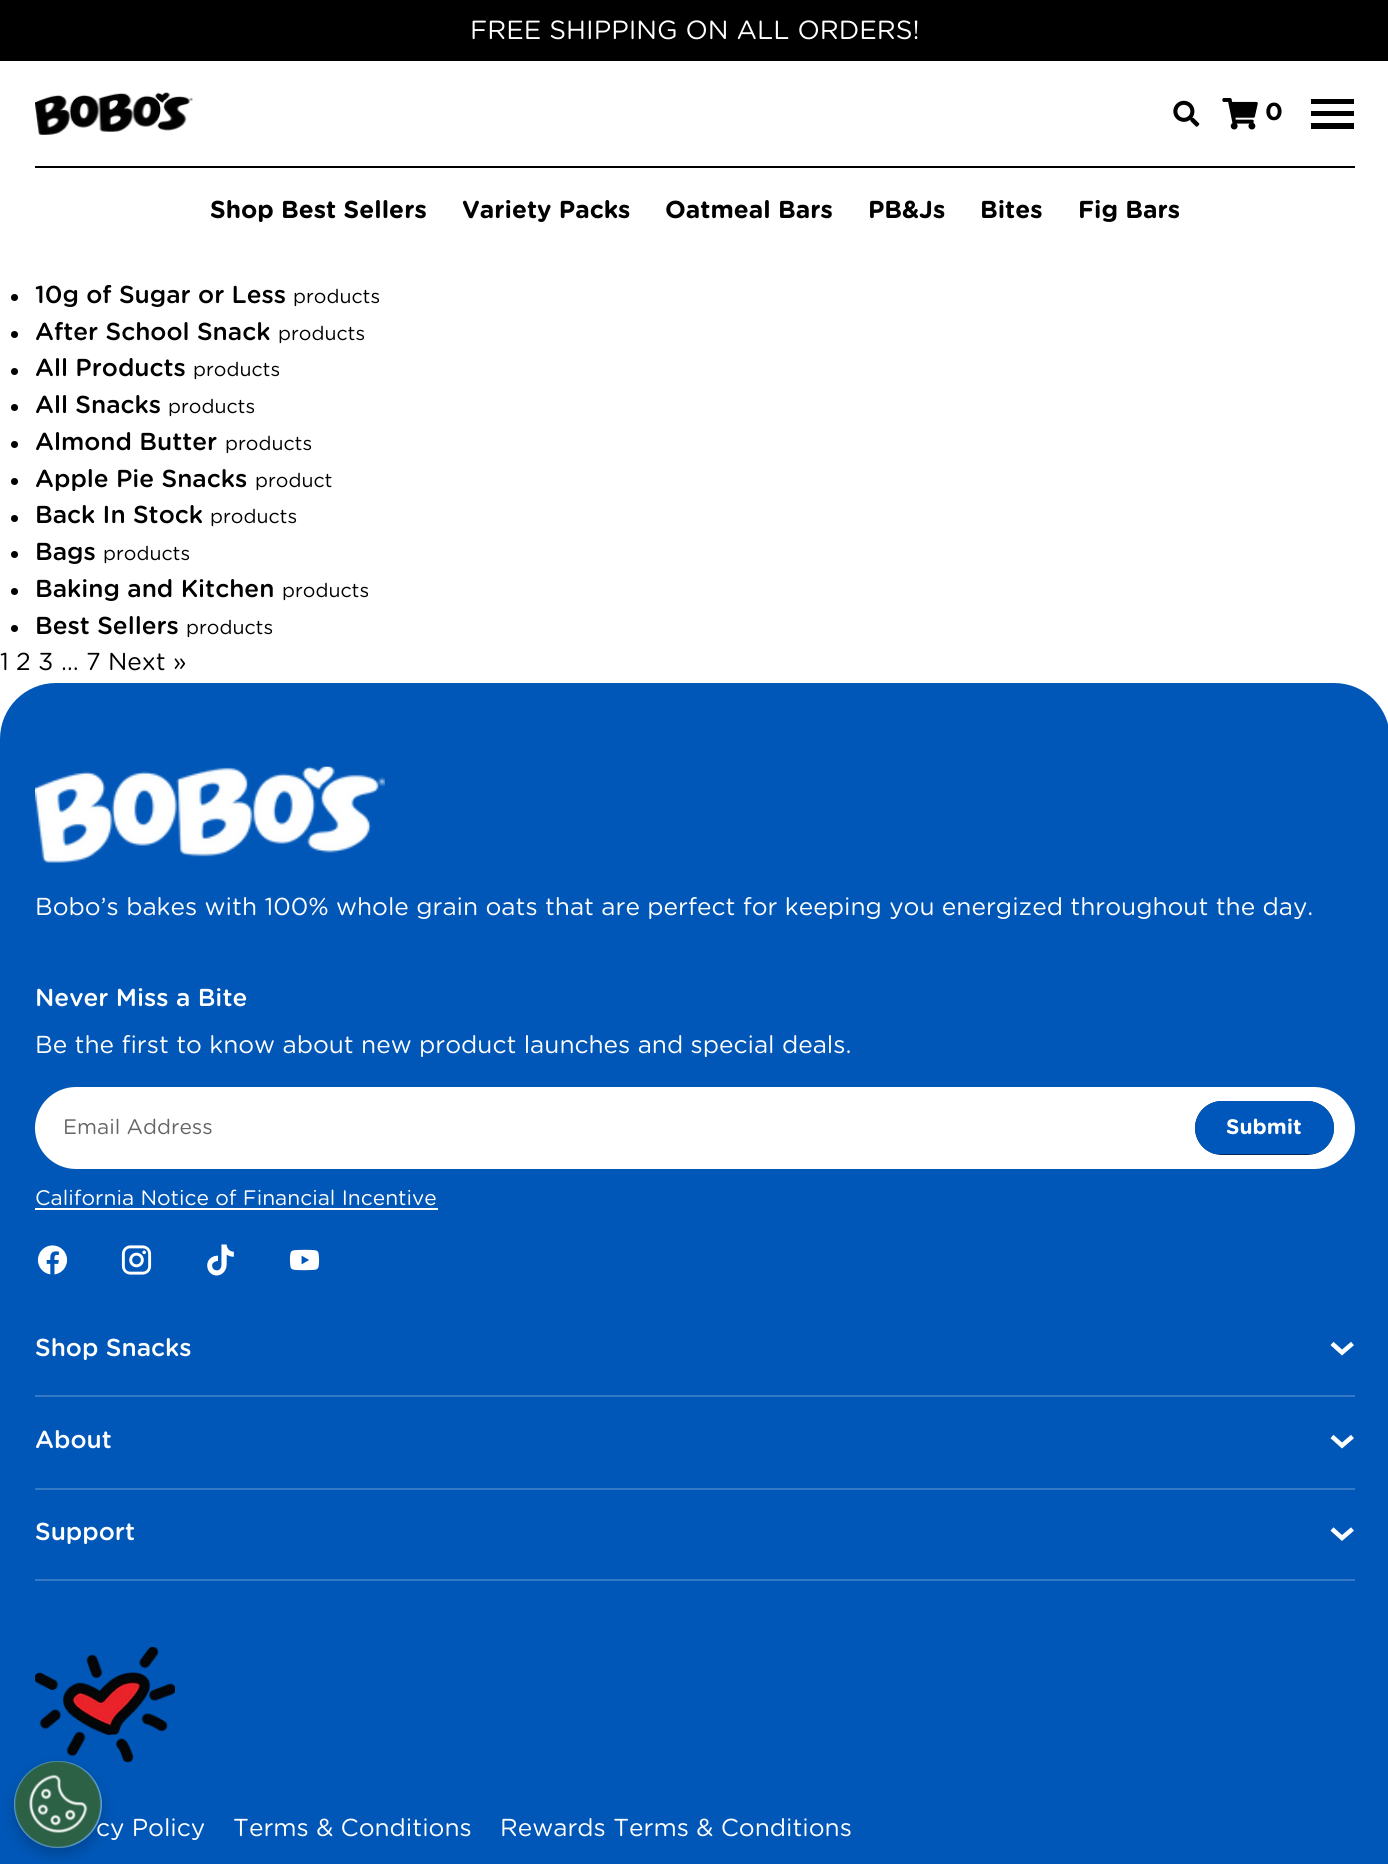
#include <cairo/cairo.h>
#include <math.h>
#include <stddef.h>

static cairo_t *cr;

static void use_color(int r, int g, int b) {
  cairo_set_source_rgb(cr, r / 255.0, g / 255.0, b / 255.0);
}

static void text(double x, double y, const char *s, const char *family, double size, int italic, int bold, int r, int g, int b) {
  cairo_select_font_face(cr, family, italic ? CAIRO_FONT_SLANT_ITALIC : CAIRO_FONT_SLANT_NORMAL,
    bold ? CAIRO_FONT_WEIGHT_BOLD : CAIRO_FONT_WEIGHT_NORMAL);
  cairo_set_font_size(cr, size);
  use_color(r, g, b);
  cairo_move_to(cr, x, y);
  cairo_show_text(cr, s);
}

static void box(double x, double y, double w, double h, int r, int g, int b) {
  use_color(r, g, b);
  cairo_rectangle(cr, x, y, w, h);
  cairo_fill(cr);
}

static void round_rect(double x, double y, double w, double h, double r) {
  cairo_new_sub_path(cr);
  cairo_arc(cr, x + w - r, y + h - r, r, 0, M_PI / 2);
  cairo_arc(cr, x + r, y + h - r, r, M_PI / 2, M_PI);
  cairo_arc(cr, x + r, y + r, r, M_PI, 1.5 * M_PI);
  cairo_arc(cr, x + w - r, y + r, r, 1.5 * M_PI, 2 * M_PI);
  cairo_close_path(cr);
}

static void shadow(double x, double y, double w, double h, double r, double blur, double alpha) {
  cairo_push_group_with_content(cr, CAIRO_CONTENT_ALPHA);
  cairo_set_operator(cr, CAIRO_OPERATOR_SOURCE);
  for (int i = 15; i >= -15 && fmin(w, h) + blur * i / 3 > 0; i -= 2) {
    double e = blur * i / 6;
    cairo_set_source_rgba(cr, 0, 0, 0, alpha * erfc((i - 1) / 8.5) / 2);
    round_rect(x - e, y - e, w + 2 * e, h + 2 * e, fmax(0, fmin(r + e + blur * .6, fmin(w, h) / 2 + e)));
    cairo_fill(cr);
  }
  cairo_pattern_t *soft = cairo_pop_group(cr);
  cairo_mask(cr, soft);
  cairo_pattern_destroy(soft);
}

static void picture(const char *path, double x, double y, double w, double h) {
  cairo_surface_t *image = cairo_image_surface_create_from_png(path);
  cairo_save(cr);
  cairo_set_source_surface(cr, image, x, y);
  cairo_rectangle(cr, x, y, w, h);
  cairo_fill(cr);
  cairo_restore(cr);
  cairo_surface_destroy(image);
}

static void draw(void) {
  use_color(255, 255, 255);
  cairo_paint(cr);
  box(0, 0, 1388, 61, 0, 0, 0);
  picture("img_01.png", 35, 92, 158, 43);
  picture("img_02.png", 1173, 100, 27, 27);
  picture("img_03.png", 1222, 98, 36, 32);
  box(1311, 99, 43, 5, 0, 0, 0);
  box(1311, 111, 43, 5, 0, 0, 0);
  box(1311, 123, 43, 6, 0, 0, 0);
  box(35, 166, 1320, 2, 0, 0, 0);
  cairo_arc(cr, 14.5, 297.5, 3.5, 0, 2 * M_PI);
  cairo_fill(cr);
  cairo_arc(cr, 14.5, 334.5, 3.5, 0, 2 * M_PI);
  cairo_fill(cr);
  cairo_arc(cr, 14.5, 371.5, 3.5, 0, 2 * M_PI);
  cairo_fill(cr);
  cairo_arc(cr, 14.5, 407.5, 3.5, 0, 2 * M_PI);
  cairo_fill(cr);
  cairo_arc(cr, 14.5, 444.5, 3.5, 0, 2 * M_PI);
  cairo_fill(cr);
  cairo_arc(cr, 14.5, 481.5, 3.5, 0, 2 * M_PI);
  cairo_fill(cr);
  cairo_arc(cr, 14.5, 518.5, 3.5, 0, 2 * M_PI);
  cairo_fill(cr);
  cairo_arc(cr, 14.5, 554.5, 3.5, 0, 2 * M_PI);
  cairo_fill(cr);
  cairo_arc(cr, 14.5, 591.5, 3.5, 0, 2 * M_PI);
  cairo_fill(cr);
  cairo_arc(cr, 14.5, 628.5, 3.5, 0, 2 * M_PI);
  cairo_fill(cr);
  use_color(0, 87, 184);
  cairo_new_path(cr);
  cairo_move_to(cr, 56, 683);
  cairo_line_to(cr, 1334, 683);
  cairo_curve_to(cr, 1365, 683, 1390, 708, 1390, 739);
  cairo_line_to(cr, 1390, 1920);
  cairo_line_to(cr, 0, 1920);
  cairo_line_to(cr, 0, 739);
  cairo_curve_to(cr, 0, 708, 25, 683, 56, 683);
  cairo_close_path(cr);
  cairo_fill(cr);
  picture("img_04.png", 35, 766, 350, 97);
  use_color(255, 255, 255);
  round_rect(35, 1087, 1320, 82, 41);
  cairo_fill(cr);
  use_color(0, 40, 85);
  round_rect(1195, 1101, 139, 54, 27);
  cairo_fill(cr);
  use_color(0, 87, 187);
  cairo_new_path(cr);
  cairo_move_to(cr, 1222, 1101);
  cairo_line_to(cr, 1307, 1101);
  cairo_curve_to(cr, 1322, 1101, 1334, 1113, 1334, 1128);
  cairo_curve_to(cr, 1334, 1140, 1326, 1151, 1314, 1154);
  cairo_line_to(cr, 1215, 1154);
  cairo_curve_to(cr, 1203, 1151, 1195, 1140, 1195, 1128);
  cairo_curve_to(cr, 1195, 1113, 1207, 1101, 1222, 1101);
  cairo_close_path(cr);
  cairo_fill(cr);
  box(35, 1208, 403, 2, 255, 255, 255);
  picture("img_05.png", 37, 1245, 31, 30);
  picture("img_06.png", 121, 1245, 31, 30);
  picture("img_07.png", 207, 1244, 27, 32);
  picture("img_08.png", 289, 1249, 31, 22);
  box(35, 1395, 1320, 2, 51, 121, 198);
  cairo_new_path(cr);
  cairo_move_to(cr, 1352.5, 1343.5);
  cairo_line_to(cr, 1342, 1352.5);
  cairo_line_to(cr, 1332, 1343.5);
  use_color(255, 255, 255);
  cairo_set_line_width(cr, 4.5);
  cairo_stroke(cr);
  box(35, 1488, 1320, 2, 51, 121, 198);
  cairo_new_path(cr);
  cairo_move_to(cr, 1352.5, 1436.5);
  cairo_line_to(cr, 1342, 1445.5);
  cairo_line_to(cr, 1332, 1436.5);
  use_color(255, 255, 255);
  cairo_stroke(cr);
  box(35, 1579, 1320, 2, 51, 121, 198);
  cairo_new_path(cr);
  cairo_move_to(cr, 1352.5, 1529);
  cairo_line_to(cr, 1342, 1538);
  cairo_line_to(cr, 1332, 1529);
  use_color(255, 255, 255);
  cairo_stroke(cr);
  picture("img_09.png", 35, 1646, 140, 117);
  use_color(0, 0, 0);
  shadow(14, 1768, 88, 87, 43.5, 7, 0.2);
  text(470, 39, "FREE SHIPPING ON ALL ORDERS!", "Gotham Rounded", 26.25, 0, 0, 255, 255, 255);
  text(1265, 120, "0", "Gotham Rounded", 24.5, 0, 1, 0, 0, 0);
  text(210, 218, "Shop Best Sellers", "Gotham Rounded", 24.5, 0, 1, 0, 0, 0);
  text(462, 218, "Variety Packs", "Gotham Rounded", 24.5, 0, 1, 0, 0, 0);
  text(665, 218, "Oatmeal Bars", "Gotham Rounded", 24.5, 0, 1, 0, 0, 0);
  text(868, 218, "PB&Js", "Gotham Rounded", 24.5, 0, 1, 0, 0, 0);
  text(980, 218, "Bites", "Gotham Rounded", 24.5, 0, 1, 0, 0, 0);
  text(1078, 218, "Fig Bars", "Gotham Rounded", 24.5, 0, 1, 0, 0, 0);
  text(35, 303, "10g of Sugar or Less", "Gotham Rounded Medium", 24.5, 0, 0, 0, 0, 0);
  text(293, 303, "products", "Gotham Rounded", 19.5, 0, 0, 0, 0, 0);
  text(35, 340, "After School Snack", "Gotham Rounded Medium", 24.5, 0, 0, 0, 0, 0);
  text(278, 340, "products", "Gotham Rounded", 19.5, 0, 0, 0, 0, 0);
  text(35, 376, "All Products", "Gotham Rounded Medium", 24.5, 0, 0, 0, 0, 0);
  text(193, 376, "products", "Gotham Rounded", 19.5, 0, 0, 0, 0, 0);
  text(35, 413, "All Snacks", "Gotham Rounded Medium", 24.5, 0, 0, 0, 0, 0);
  text(168, 413, "products", "Gotham Rounded", 19.5, 0, 0, 0, 0, 0);
  text(35, 450, "Almond Butter", "Gotham Rounded Medium", 24.5, 0, 0, 0, 0, 0);
  text(225, 450, "products", "Gotham Rounded", 19.5, 0, 0, 0, 0, 0);
  text(35, 487, "Apple Pie Snacks", "Gotham Rounded Medium", 24.5, 0, 0, 0, 0, 0);
  text(255, 487, "product", "Gotham Rounded", 19.5, 0, 0, 0, 0, 0);
  text(35, 523, "Back In Stock", "Gotham Rounded Medium", 24.5, 0, 0, 0, 0, 0);
  text(210, 523, "products", "Gotham Rounded", 19.5, 0, 0, 0, 0, 0);
  text(35, 560, "Bags", "Gotham Rounded Medium", 24.5, 0, 0, 0, 0, 0);
  text(103, 560, "products", "Gotham Rounded", 19.5, 0, 0, 0, 0, 0);
  text(35, 597, "Baking and Kitchen", "Gotham Rounded Medium", 24.5, 0, 0, 0, 0, 0);
  text(282, 597, "products", "Gotham Rounded", 19.5, 0, 0, 0, 0, 0);
  text(35, 634, "Best Sellers", "Gotham Rounded Medium", 24.5, 0, 0, 0, 0, 0);
  text(186, 634, "products", "Gotham Rounded", 19.5, 0, 0, 0, 0, 0);
  text(0, 670, "1 2 3", "Gotham Rounded", 24.5, 0, 0, 0, 0, 0);
  text(61, 670, "… 7", "Gotham Rounded", 24.5, 0, 0, 0, 0, 0);
  text(108, 670, "Next »", "Gotham Rounded", 24.5, 0, 0, 0, 0, 0);
  text(35, 915, "Bobo’s bakes with 100% whole grain oats that are perfect for keeping you energized throughout the day.", "Gotham Rounded", 24.5, 0, 0, 255, 255, 255);
  text(35, 1006, "Never Miss a Bite", "Gotham Rounded Medium", 24.5, 0, 0, 255, 255, 255);
  text(35, 1053, "Be the first to know about new product launches and special deals.", "Gotham Rounded", 24.5, 0, 0, 255, 255, 255);
  text(63, 1134, "Email Address", "Gotham Rounded", 21, 0, 0, 102, 102, 102);
  text(1226, 1134, "Submit", "Gotham Rounded", 21, 0, 1, 255, 255, 255);
  text(35, 1205, "California Notice of Financial Incentive", "Gotham Rounded", 21, 0, 0, 255, 255, 255);
  text(35, 1356, "Shop Snacks", "Gotham Rounded Medium", 24.5, 0, 0, 255, 255, 255);
  text(35, 1448, "About", "Gotham Rounded Medium", 24.5, 0, 0, 255, 255, 255);
  text(35, 1540, "Support", "Gotham Rounded Medium", 24.5, 0, 0, 255, 255, 255);
  text(96, 1836, "cy Policy", "Gotham Rounded", 24.5, 0, 0, 255, 255, 255);
  text(233, 1836, "Terms & Conditions", "Gotham Rounded", 24.5, 0, 0, 255, 255, 255);
  text(500, 1836, "Rewards Terms & Conditions", "Gotham Rounded", 24.5, 0, 0, 255, 255, 255);
  use_color(106, 170, 228);
  round_rect(14, 1761, 88, 87, 43.5);
  cairo_fill(cr);
  picture("img_10.png", 14, 1761, 88, 87);
}

int main(void) {
  cairo_surface_t *surface = cairo_image_surface_create(CAIRO_FORMAT_RGB24, 1388, 1864);
  cr = cairo_create(surface);
  cairo_font_options_t *options = cairo_font_options_create();
  cairo_font_options_set_hint_metrics(options, CAIRO_HINT_METRICS_OFF);
  cairo_font_options_set_hint_style(options, CAIRO_HINT_STYLE_NONE);
  cairo_set_font_options(cr, options);
  cairo_set_miter_limit(cr, 4);
  draw();
  cairo_surface_write_to_png(surface, "out.png");
  cairo_font_options_destroy(options);
  cairo_destroy(cr);
  cairo_surface_destroy(surface);
  return 0;
}
